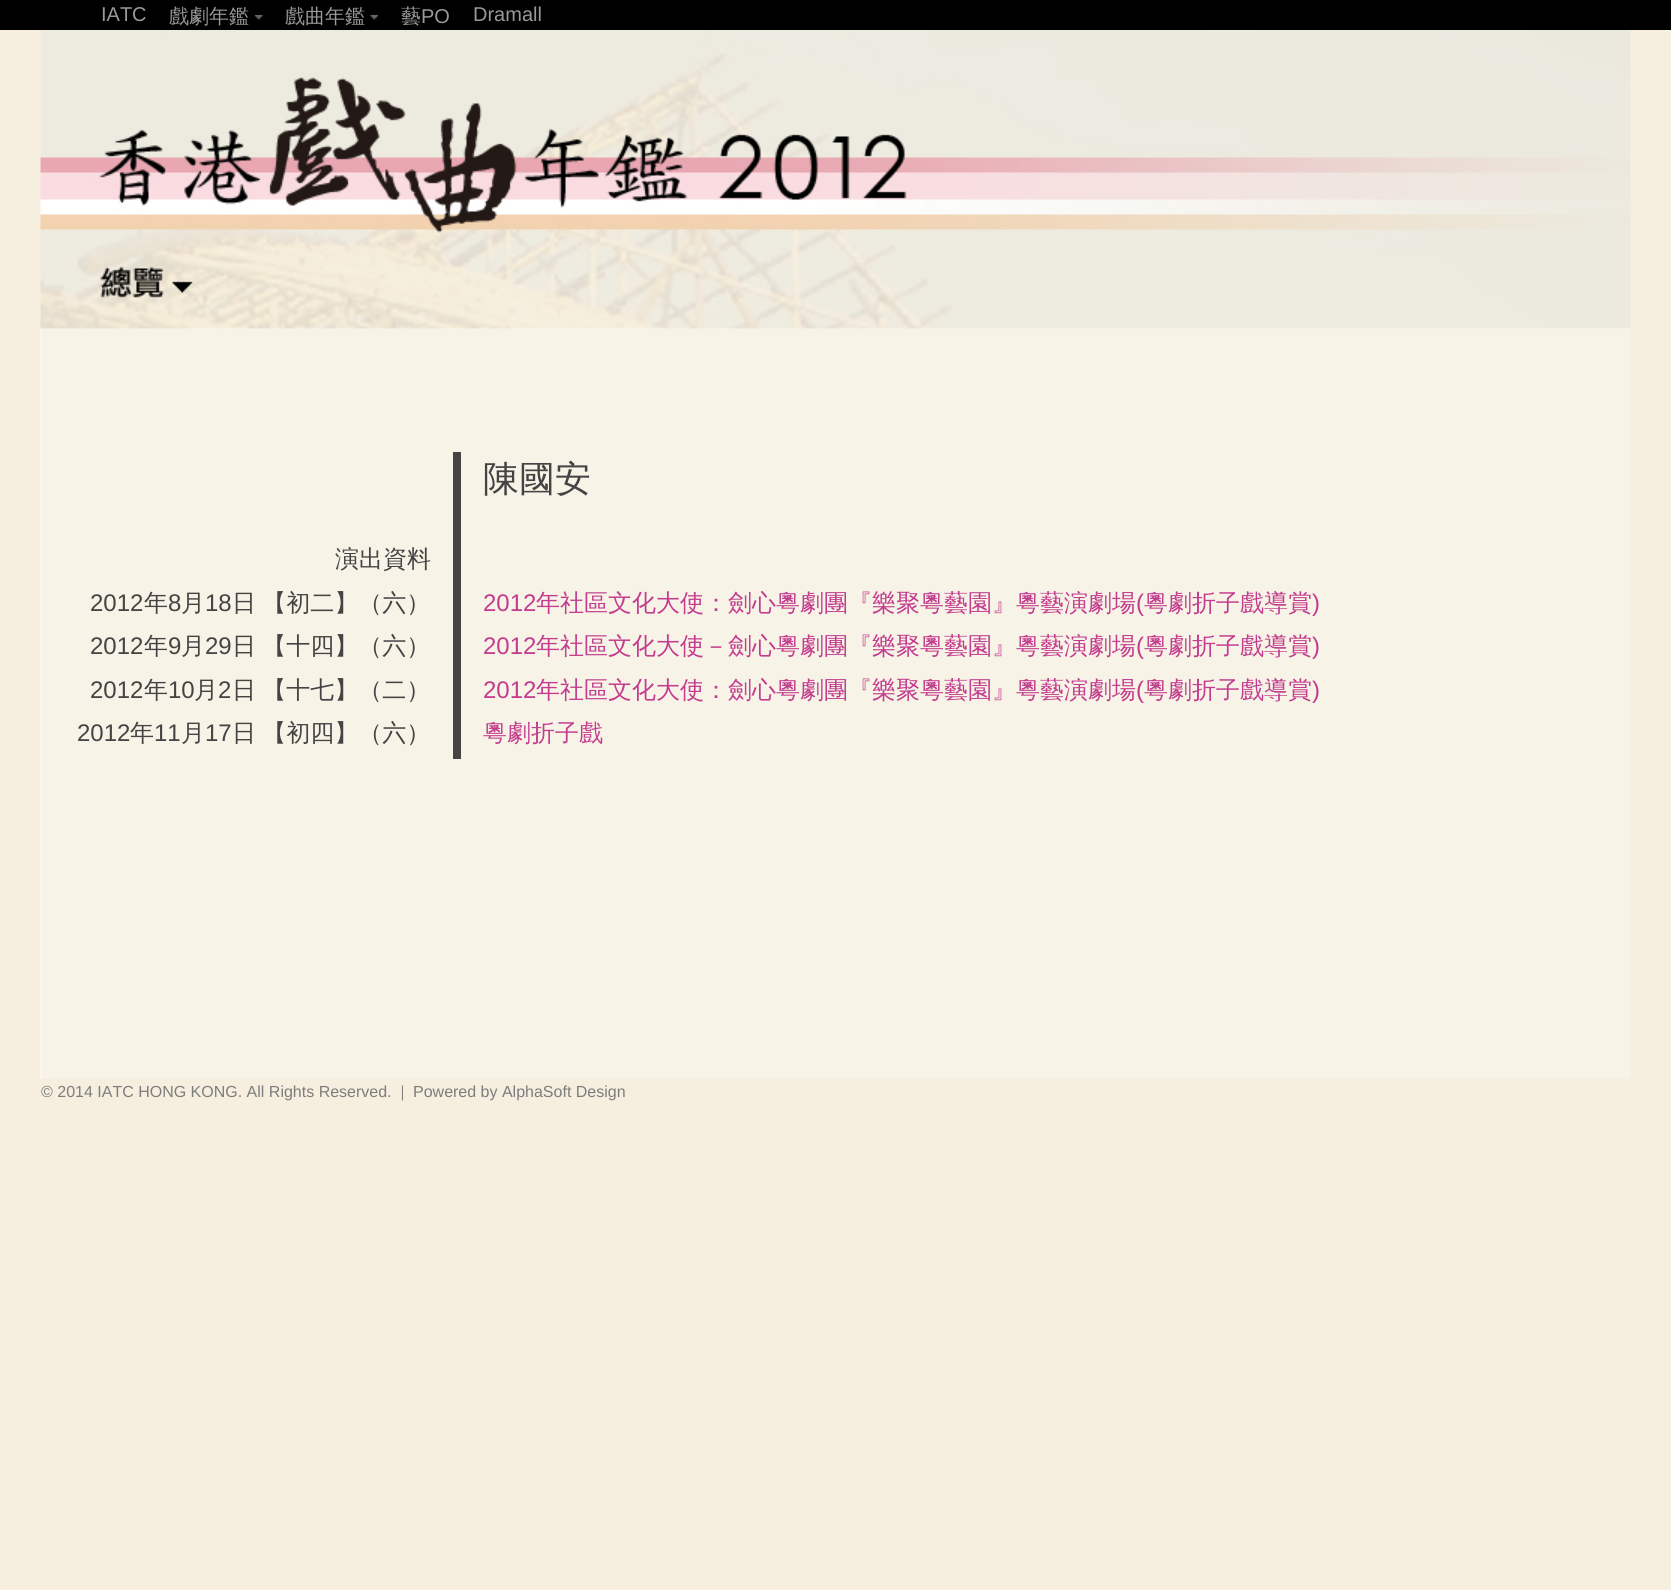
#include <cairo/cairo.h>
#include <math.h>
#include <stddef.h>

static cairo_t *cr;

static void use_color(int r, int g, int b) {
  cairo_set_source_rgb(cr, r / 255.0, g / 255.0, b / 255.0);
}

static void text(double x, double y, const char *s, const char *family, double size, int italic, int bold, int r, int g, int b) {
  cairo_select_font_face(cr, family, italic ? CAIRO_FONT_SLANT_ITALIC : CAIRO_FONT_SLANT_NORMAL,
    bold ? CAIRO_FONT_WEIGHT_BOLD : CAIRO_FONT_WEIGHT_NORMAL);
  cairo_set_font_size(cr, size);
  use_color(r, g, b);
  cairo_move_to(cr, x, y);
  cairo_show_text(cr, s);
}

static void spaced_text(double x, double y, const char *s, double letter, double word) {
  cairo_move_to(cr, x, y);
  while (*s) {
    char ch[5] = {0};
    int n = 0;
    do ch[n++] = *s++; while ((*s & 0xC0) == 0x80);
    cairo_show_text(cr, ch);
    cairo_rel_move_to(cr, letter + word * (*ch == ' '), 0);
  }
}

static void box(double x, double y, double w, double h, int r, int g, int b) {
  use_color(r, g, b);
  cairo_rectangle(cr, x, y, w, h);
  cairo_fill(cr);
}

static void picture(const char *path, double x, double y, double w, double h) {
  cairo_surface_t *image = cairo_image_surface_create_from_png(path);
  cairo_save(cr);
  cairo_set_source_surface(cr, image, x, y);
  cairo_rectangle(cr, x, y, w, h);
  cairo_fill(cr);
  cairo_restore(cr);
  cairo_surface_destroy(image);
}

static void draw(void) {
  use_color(246, 239, 223);
  cairo_paint(cr);
  box(0, 0, 1671, 30, 0, 0, 0);
  picture("img_01.png", 255, 15, 8, 5);
  picture("img_02.png", 370, 15, 8, 5);
  box(40, 328, 1591, 751, 251, 247, 238);
  picture("img_03.png", 40, 30, 1591, 299);
  box(41, 329, 1590, 750, 248, 243, 231);
  box(453, 452, 8, 307, 68, 68, 68);
  text(101, 21, "IATC", "Liberation Sans", 20, 0, 0, 153, 153, 153);
  text(169, 23, "戲劇年鑑", "WenQuanYi Zen Hei Medium", 20, 0, 0, 153, 153, 153);
  text(285, 23, "戲曲年鑑", "WenQuanYi Zen Hei Medium", 20, 0, 0, 153, 153, 153);
  text(401, 23, "藝", "WenQuanYi Zen Hei Medium", 20, 0, 0, 153, 153, 153);
  text(421, 23, "PO", "Liberation Sans", 20, 0, 0, 153, 153, 153);
  text(473, 21, "Dramall", "Liberation Sans", 20, 0, 0, 153, 153, 153);
  text(483, 491, "陳國安", "WenQuanYi Zen Hei Medium", 36, 0, 0, 68, 68, 68);
  text(335, 567, "演出資料", "WenQuanYi Zen Hei Medium", 24, 0, 0, 68, 68, 68);
  text(90, 611, "2012", "Liberation Sans", 24, 0, 0, 68, 68, 68);
  text(144, 611, "年", "WenQuanYi Zen Hei Medium", 24, 0, 0, 68, 68, 68);
  text(168, 611, "8", "Liberation Sans", 24, 0, 0, 68, 68, 68);
  text(181, 611, "月", "WenQuanYi Zen Hei Medium", 24, 0, 0, 68, 68, 68);
  text(205, 611, "18", "Liberation Sans", 24, 0, 0, 68, 68, 68);
  cairo_select_font_face(cr, "WenQuanYi Zen Hei Medium", CAIRO_FONT_SLANT_NORMAL, CAIRO_FONT_WEIGHT_NORMAL);
  spaced_text(232, 611, "日 【初二】（六）", 0, -1);
  text(483, 611, "2012", "Liberation Sans", 24, 0, 0, 195, 60, 142);
  text(536, 611, "年社區文化大使：劍心粵劇團『樂聚粵藝園』粵藝演劇場", "WenQuanYi Zen Hei Medium", 24, 0, 0, 195, 60, 142);
  text(1136, 611, "(", "Liberation Sans", 24, 0, 0, 195, 60, 142);
  text(1144, 611, "粵劇折子戲導賞", "WenQuanYi Zen Hei Medium", 24, 0, 0, 195, 60, 142);
  text(1312, 611, ")", "Liberation Sans", 24, 0, 0, 195, 60, 142);
  text(90, 654, "2012", "Liberation Sans", 24, 0, 0, 68, 68, 68);
  text(144, 654, "年", "WenQuanYi Zen Hei Medium", 24, 0, 0, 68, 68, 68);
  text(168, 654, "9", "Liberation Sans", 24, 0, 0, 68, 68, 68);
  text(181, 654, "月", "WenQuanYi Zen Hei Medium", 24, 0, 0, 68, 68, 68);
  text(205, 654, "29", "Liberation Sans", 24, 0, 0, 68, 68, 68);
  cairo_select_font_face(cr, "WenQuanYi Zen Hei Medium", CAIRO_FONT_SLANT_NORMAL, CAIRO_FONT_WEIGHT_NORMAL);
  spaced_text(232, 654, "日 【十四】（六）", 0, -1);
  text(483, 654, "2012", "Liberation Sans", 24, 0, 0, 195, 60, 142);
  text(536, 654, "年社區文化大使－劍心粵劇團『樂聚粵藝園』粵藝演劇場", "WenQuanYi Zen Hei Medium", 24, 0, 0, 195, 60, 142);
  text(1136, 654, "(", "Liberation Sans", 24, 0, 0, 195, 60, 142);
  text(1144, 654, "粵劇折子戲導賞", "WenQuanYi Zen Hei Medium", 24, 0, 0, 195, 60, 142);
  text(1312, 654, ")", "Liberation Sans", 24, 0, 0, 195, 60, 142);
  text(90, 698, "2012", "Liberation Sans", 24, 0, 0, 68, 68, 68);
  text(144, 698, "年", "WenQuanYi Zen Hei Medium", 24, 0, 0, 68, 68, 68);
  text(168, 698, "10", "Liberation Sans", 24, 0, 0, 68, 68, 68);
  text(194, 698, "月", "WenQuanYi Zen Hei Medium", 24, 0, 0, 68, 68, 68);
  text(218, 698, "2", "Liberation Sans", 24, 0, 0, 68, 68, 68);
  cairo_select_font_face(cr, "WenQuanYi Zen Hei Medium", CAIRO_FONT_SLANT_NORMAL, CAIRO_FONT_WEIGHT_NORMAL);
  spaced_text(232, 698, "日 【十七】（二）", 0, -1);
  text(483, 698, "2012", "Liberation Sans", 24, 0, 0, 195, 60, 142);
  text(536, 698, "年社區文化大使：劍心粵劇團『樂聚粵藝園』粵藝演劇場", "WenQuanYi Zen Hei Medium", 24, 0, 0, 195, 60, 142);
  text(1136, 698, "(", "Liberation Sans", 24, 0, 0, 195, 60, 142);
  text(1144, 698, "粵劇折子戲導賞", "WenQuanYi Zen Hei Medium", 24, 0, 0, 195, 60, 142);
  text(1312, 698, ")", "Liberation Sans", 24, 0, 0, 195, 60, 142);
  text(77, 741, "2012", "Liberation Sans", 24, 0, 0, 68, 68, 68);
  text(130, 741, "年", "WenQuanYi Zen Hei Medium", 24, 0, 0, 68, 68, 68);
  text(154, 741, "11", "Liberation Sans", 24, 0, 0, 68, 68, 68);
  text(181, 741, "月", "WenQuanYi Zen Hei Medium", 24, 0, 0, 68, 68, 68);
  text(205, 741, "17", "Liberation Sans", 24, 0, 0, 68, 68, 68);
  cairo_select_font_face(cr, "WenQuanYi Zen Hei Medium", CAIRO_FONT_SLANT_NORMAL, CAIRO_FONT_WEIGHT_NORMAL);
  spaced_text(232, 741, "日 【初四】（六）", 0, -1);
  text(483, 741, "粵劇折子戲", "WenQuanYi Zen Hei Medium", 24, 0, 0, 195, 60, 142);
  text(41, 1097, "© 2014 IATC HONG KONG. All Rights Reserved.  |", "Liberation Sans", 16, 0, 0, 125, 125, 125);
  text(413, 1097, "Powered by AlphaSoft Design", "Liberation Sans", 16, 0, 0, 125, 125, 125);
}

int main(void) {
  cairo_surface_t *surface = cairo_image_surface_create(CAIRO_FORMAT_RGB24, 1671, 1590);
  cr = cairo_create(surface);
  cairo_font_options_t *options = cairo_font_options_create();
  cairo_font_options_set_hint_metrics(options, CAIRO_HINT_METRICS_OFF);
  cairo_font_options_set_hint_style(options, CAIRO_HINT_STYLE_NONE);
  cairo_set_font_options(cr, options);
  cairo_set_miter_limit(cr, 4);
  draw();
  cairo_surface_write_to_png(surface, "out.png");
  cairo_font_options_destroy(options);
  cairo_destroy(cr);
  cairo_surface_destroy(surface);
  return 0;
}
